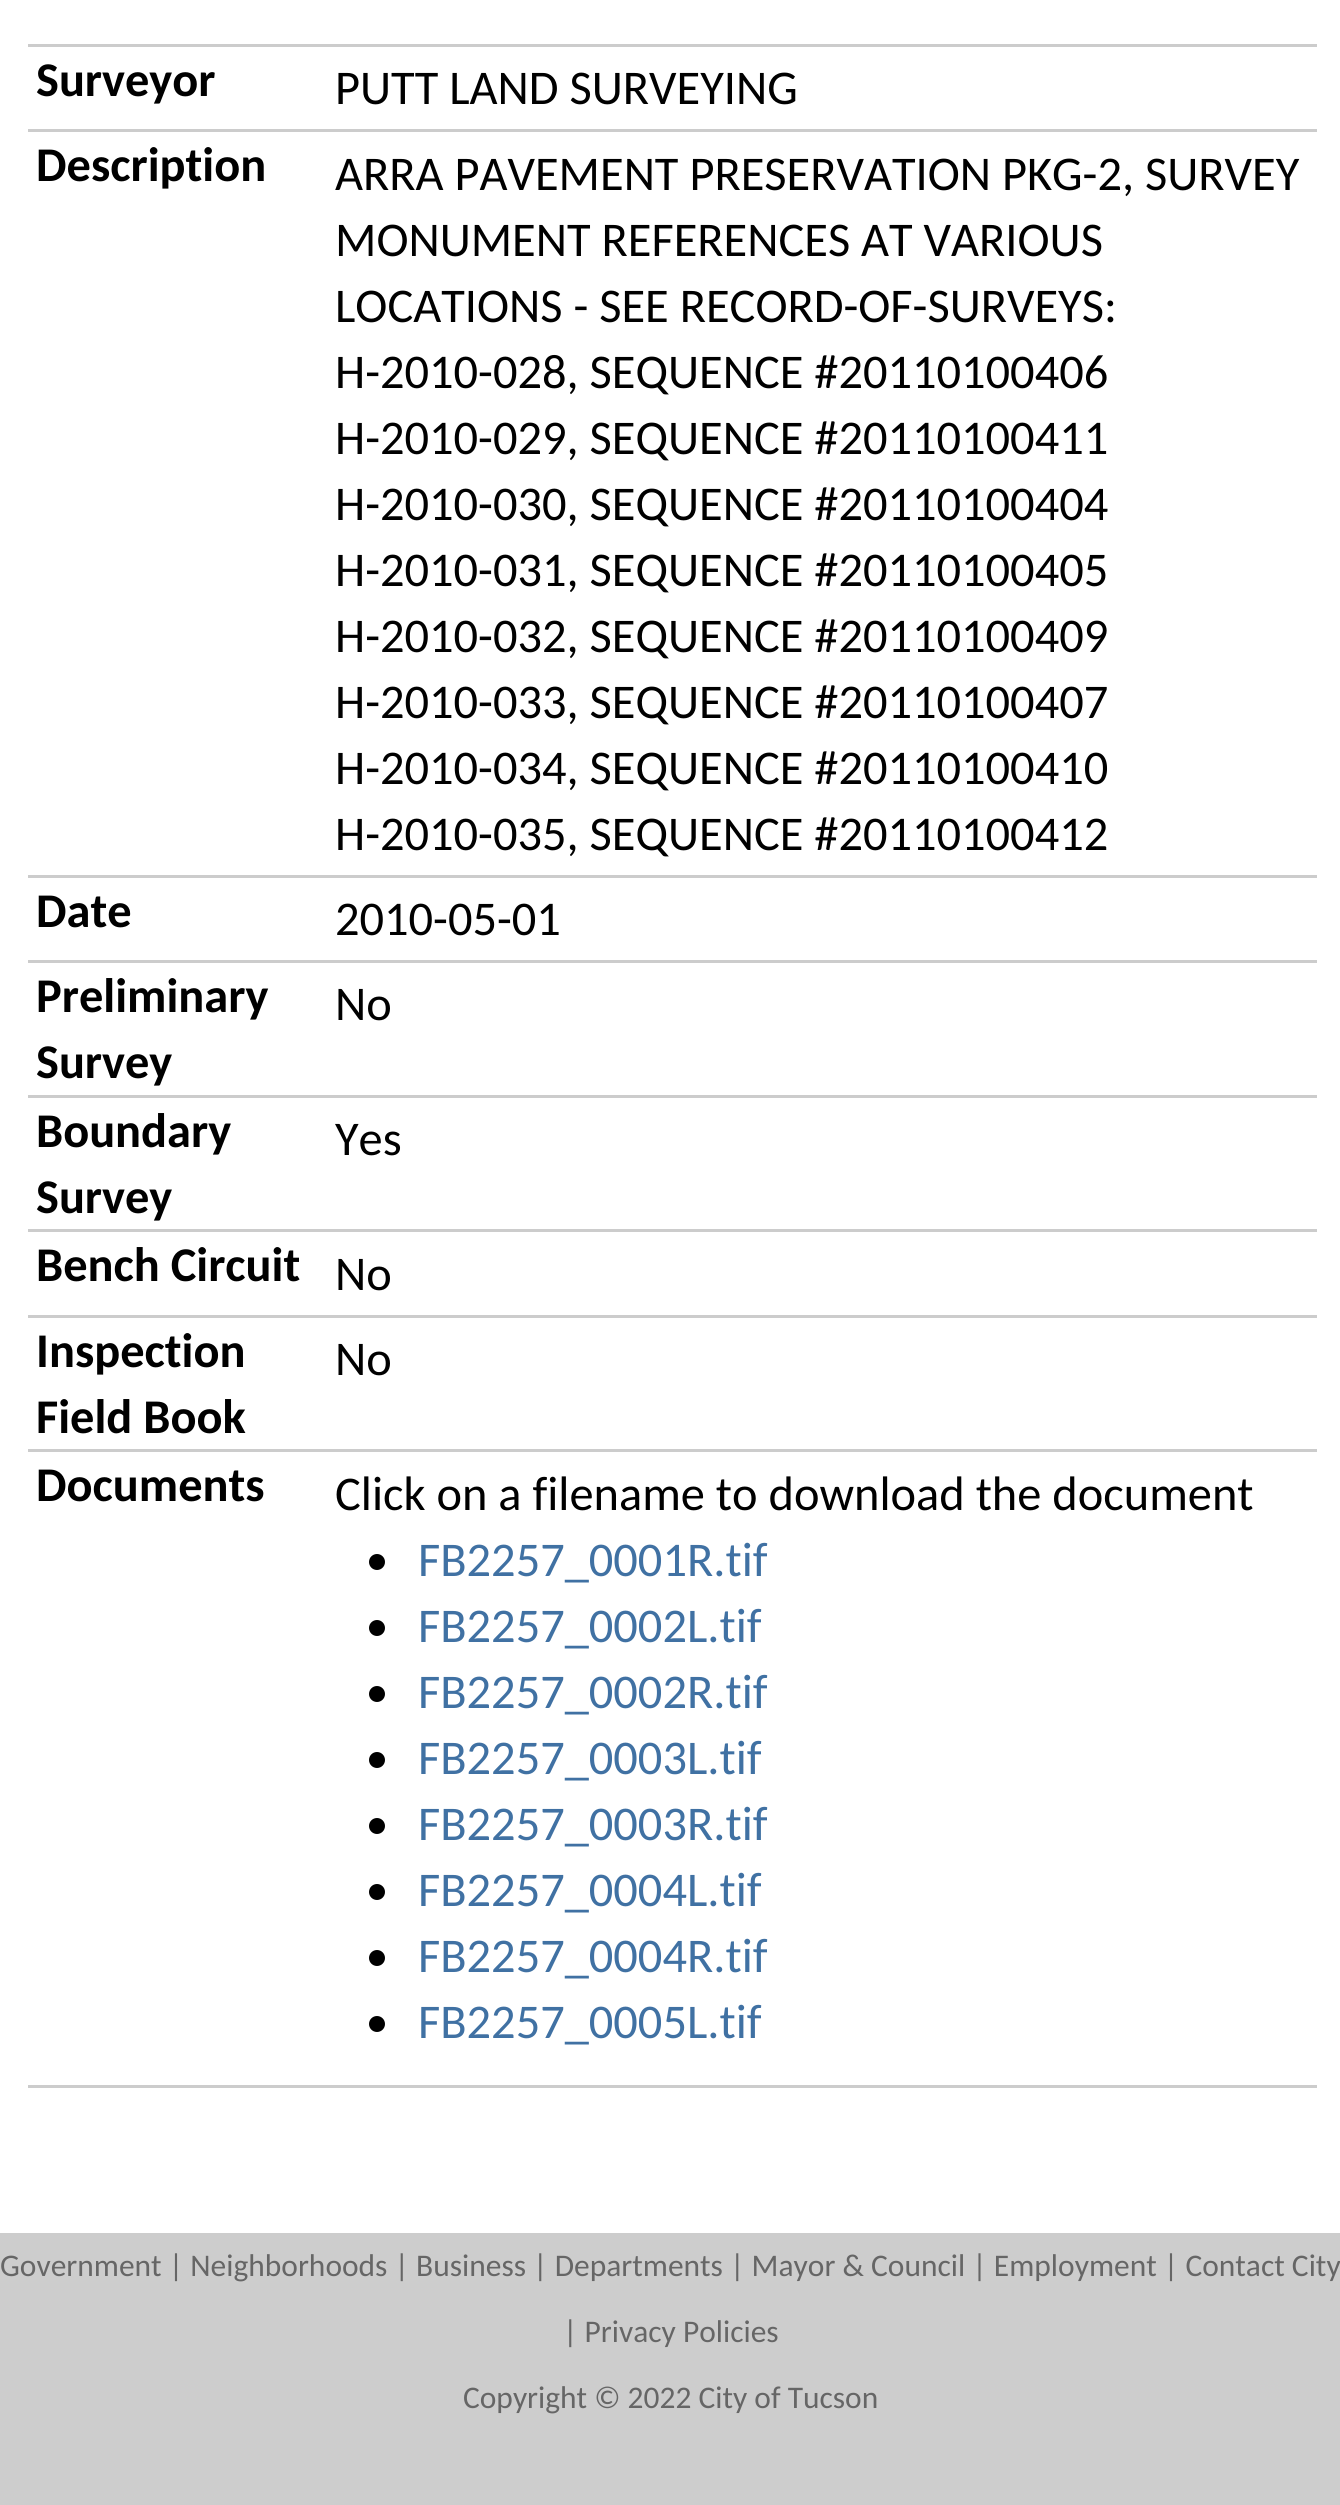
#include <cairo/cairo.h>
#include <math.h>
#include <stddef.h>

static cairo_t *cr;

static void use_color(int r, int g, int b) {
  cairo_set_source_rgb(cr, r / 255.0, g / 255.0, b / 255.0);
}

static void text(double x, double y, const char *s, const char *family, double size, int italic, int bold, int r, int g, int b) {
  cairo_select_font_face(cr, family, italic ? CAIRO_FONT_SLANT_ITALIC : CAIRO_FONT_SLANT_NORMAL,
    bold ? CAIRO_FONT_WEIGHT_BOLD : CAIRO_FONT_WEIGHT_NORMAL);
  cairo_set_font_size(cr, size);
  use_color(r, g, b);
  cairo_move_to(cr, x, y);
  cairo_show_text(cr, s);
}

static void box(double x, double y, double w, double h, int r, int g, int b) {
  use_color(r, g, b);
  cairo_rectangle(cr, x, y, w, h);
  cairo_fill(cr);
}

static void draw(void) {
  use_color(205, 205, 205);
  cairo_paint(cr);
  box(0, 0, 1340, 2233, 255, 255, 255);
  box(28, 44, 1289, 3, 204, 204, 204);
  box(28, 129, 1289, 3, 204, 204, 204);
  box(28, 875, 1289, 3, 204, 204, 204);
  box(28, 960, 1289, 3, 204, 204, 204);
  box(28, 1095, 1289, 3, 204, 204, 204);
  box(28, 1229, 1289, 3, 204, 204, 204);
  box(28, 1315, 1289, 3, 204, 204, 204);
  box(28, 1449, 1289, 3, 204, 204, 204);
  box(28, 2085, 1289, 3, 204, 204, 204);
  use_color(0, 0, 0);
  cairo_arc(cr, 377, 1562, 8, 0, 2 * M_PI);
  cairo_fill(cr);
  cairo_arc(cr, 377, 1628, 8, 0, 2 * M_PI);
  cairo_fill(cr);
  cairo_arc(cr, 377, 1694, 8, 0, 2 * M_PI);
  cairo_fill(cr);
  cairo_arc(cr, 377, 1760, 8, 0, 2 * M_PI);
  cairo_fill(cr);
  cairo_arc(cr, 377, 1826, 8, 0, 2 * M_PI);
  cairo_fill(cr);
  cairo_arc(cr, 377, 1892, 8, 0, 2 * M_PI);
  cairo_fill(cr);
  cairo_arc(cr, 377, 1958, 8, 0, 2 * M_PI);
  cairo_fill(cr);
  cairo_arc(cr, 377, 2024, 8, 0, 2 * M_PI);
  cairo_fill(cr);
  text(36, 96, "Surveyor", "Carlito", 48.4, 0, 1, 0, 0, 0);
  text(335, 104, "PUTT LAND SURVEYING", "Carlito", 48.4, 0, 0, 0, 0, 0);
  text(36, 181, "Description", "Carlito", 48.4, 0, 1, 0, 0, 0);
  text(335, 190, "ARRA PAVEMENT PRESERVATION PKG-2, SURVEY", "Carlito", 48.4, 0, 0, 0, 0, 0);
  text(335, 256, "MONUMENT REFERENCES AT VARIOUS", "Carlito", 48.4, 0, 0, 0, 0, 0);
  text(335, 322, "LOCATIONS - SEE RECORD-OF-SURVEYS:", "Carlito", 48.4, 0, 0, 0, 0, 0);
  text(335, 388, "H-2010-028, SEQUENCE #20110100406", "Carlito", 48.4, 0, 0, 0, 0, 0);
  text(335, 454, "H-2010-029, SEQUENCE #20110100411", "Carlito", 48.4, 0, 0, 0, 0, 0);
  text(335, 520, "H-2010-030, SEQUENCE #20110100404", "Carlito", 48.4, 0, 0, 0, 0, 0);
  text(335, 586, "H-2010-031, SEQUENCE #20110100405", "Carlito", 48.4, 0, 0, 0, 0, 0);
  text(335, 652, "H-2010-032, SEQUENCE #20110100409", "Carlito", 48.4, 0, 0, 0, 0, 0);
  text(335, 718, "H-2010-033, SEQUENCE #20110100407", "Carlito", 48.4, 0, 0, 0, 0, 0);
  text(335, 784, "H-2010-034, SEQUENCE #20110100410", "Carlito", 48.4, 0, 0, 0, 0, 0);
  text(335, 850, "H-2010-035, SEQUENCE #20110100412", "Carlito", 48.4, 0, 0, 0, 0, 0);
  text(36, 927, "Date", "Carlito", 48.4, 0, 1, 0, 0, 0);
  text(335, 935, "2010-05-01", "Carlito", 48.4, 0, 0, 0, 0, 0);
  text(36, 1012, "Preliminary", "Carlito", 48.4, 0, 1, 0, 0, 0);
  text(36, 1078, "Survey", "Carlito", 48.4, 0, 1, 0, 0, 0);
  text(335, 1020, "No", "Carlito", 48.4, 0, 0, 0, 0, 0);
  text(36, 1147, "Boundary", "Carlito", 48.4, 0, 1, 0, 0, 0);
  text(36, 1213, "Survey", "Carlito", 48.4, 0, 1, 0, 0, 0);
  text(335, 1155, "Yes", "Carlito", 48.4, 0, 0, 0, 0, 0);
  text(36, 1281, "Bench Circuit", "Carlito", 48.4, 0, 1, 0, 0, 0);
  text(335, 1290, "No", "Carlito", 48.4, 0, 0, 0, 0, 0);
  text(36, 1367, "Inspection", "Carlito", 48.4, 0, 1, 0, 0, 0);
  text(36, 1433, "Field Book", "Carlito", 48.4, 0, 1, 0, 0, 0);
  text(335, 1375, "No", "Carlito", 48.4, 0, 0, 0, 0, 0);
  text(36, 1501, "Documents", "Carlito", 48.4, 0, 1, 0, 0, 0);
  text(335, 1510, "Click on a filename to download the document", "Carlito", 48.4, 0, 0, 0, 0, 0);
  text(418, 1576, "FB2257_0001R.tif", "Carlito", 48.4, 0, 0, 64, 113, 163);
  text(418, 1642, "FB2257_0002L.tif", "Carlito", 48.4, 0, 0, 64, 113, 163);
  text(418, 1708, "FB2257_0002R.tif", "Carlito", 48.4, 0, 0, 64, 113, 163);
  text(418, 1774, "FB2257_0003L.tif", "Carlito", 48.4, 0, 0, 64, 113, 163);
  text(418, 1840, "FB2257_0003R.tif", "Carlito", 48.4, 0, 0, 64, 113, 163);
  text(418, 1906, "FB2257_0004L.tif", "Carlito", 48.4, 0, 0, 64, 113, 163);
  text(418, 1972, "FB2257_0004R.tif", "Carlito", 48.4, 0, 0, 64, 113, 163);
  text(418, 2038, "FB2257_0005L.tif", "Carlito", 48.4, 0, 0, 64, 113, 163);
  text(0, 2276, "Government | Neighborhoods | Business | Departments | Mayor & Council | Employment | Contact City", "Carlito", 31.45, 0, 0, 102, 102, 102);
  text(563, 2342, "| Privacy Policies", "Carlito", 31.45, 0, 0, 102, 102, 102);
  text(463, 2408, "Copyright © 2022 City of Tucson", "Carlito", 31.45, 0, 0, 102, 102, 102);
}

int main(void) {
  cairo_surface_t *surface = cairo_image_surface_create(CAIRO_FORMAT_RGB24, 1340, 2505);
  cr = cairo_create(surface);
  cairo_font_options_t *options = cairo_font_options_create();
  cairo_font_options_set_hint_metrics(options, CAIRO_HINT_METRICS_OFF);
  cairo_font_options_set_hint_style(options, CAIRO_HINT_STYLE_NONE);
  cairo_set_font_options(cr, options);
  cairo_set_miter_limit(cr, 4);
  draw();
  cairo_surface_write_to_png(surface, "out.png");
  cairo_font_options_destroy(options);
  cairo_destroy(cr);
  cairo_surface_destroy(surface);
  return 0;
}
